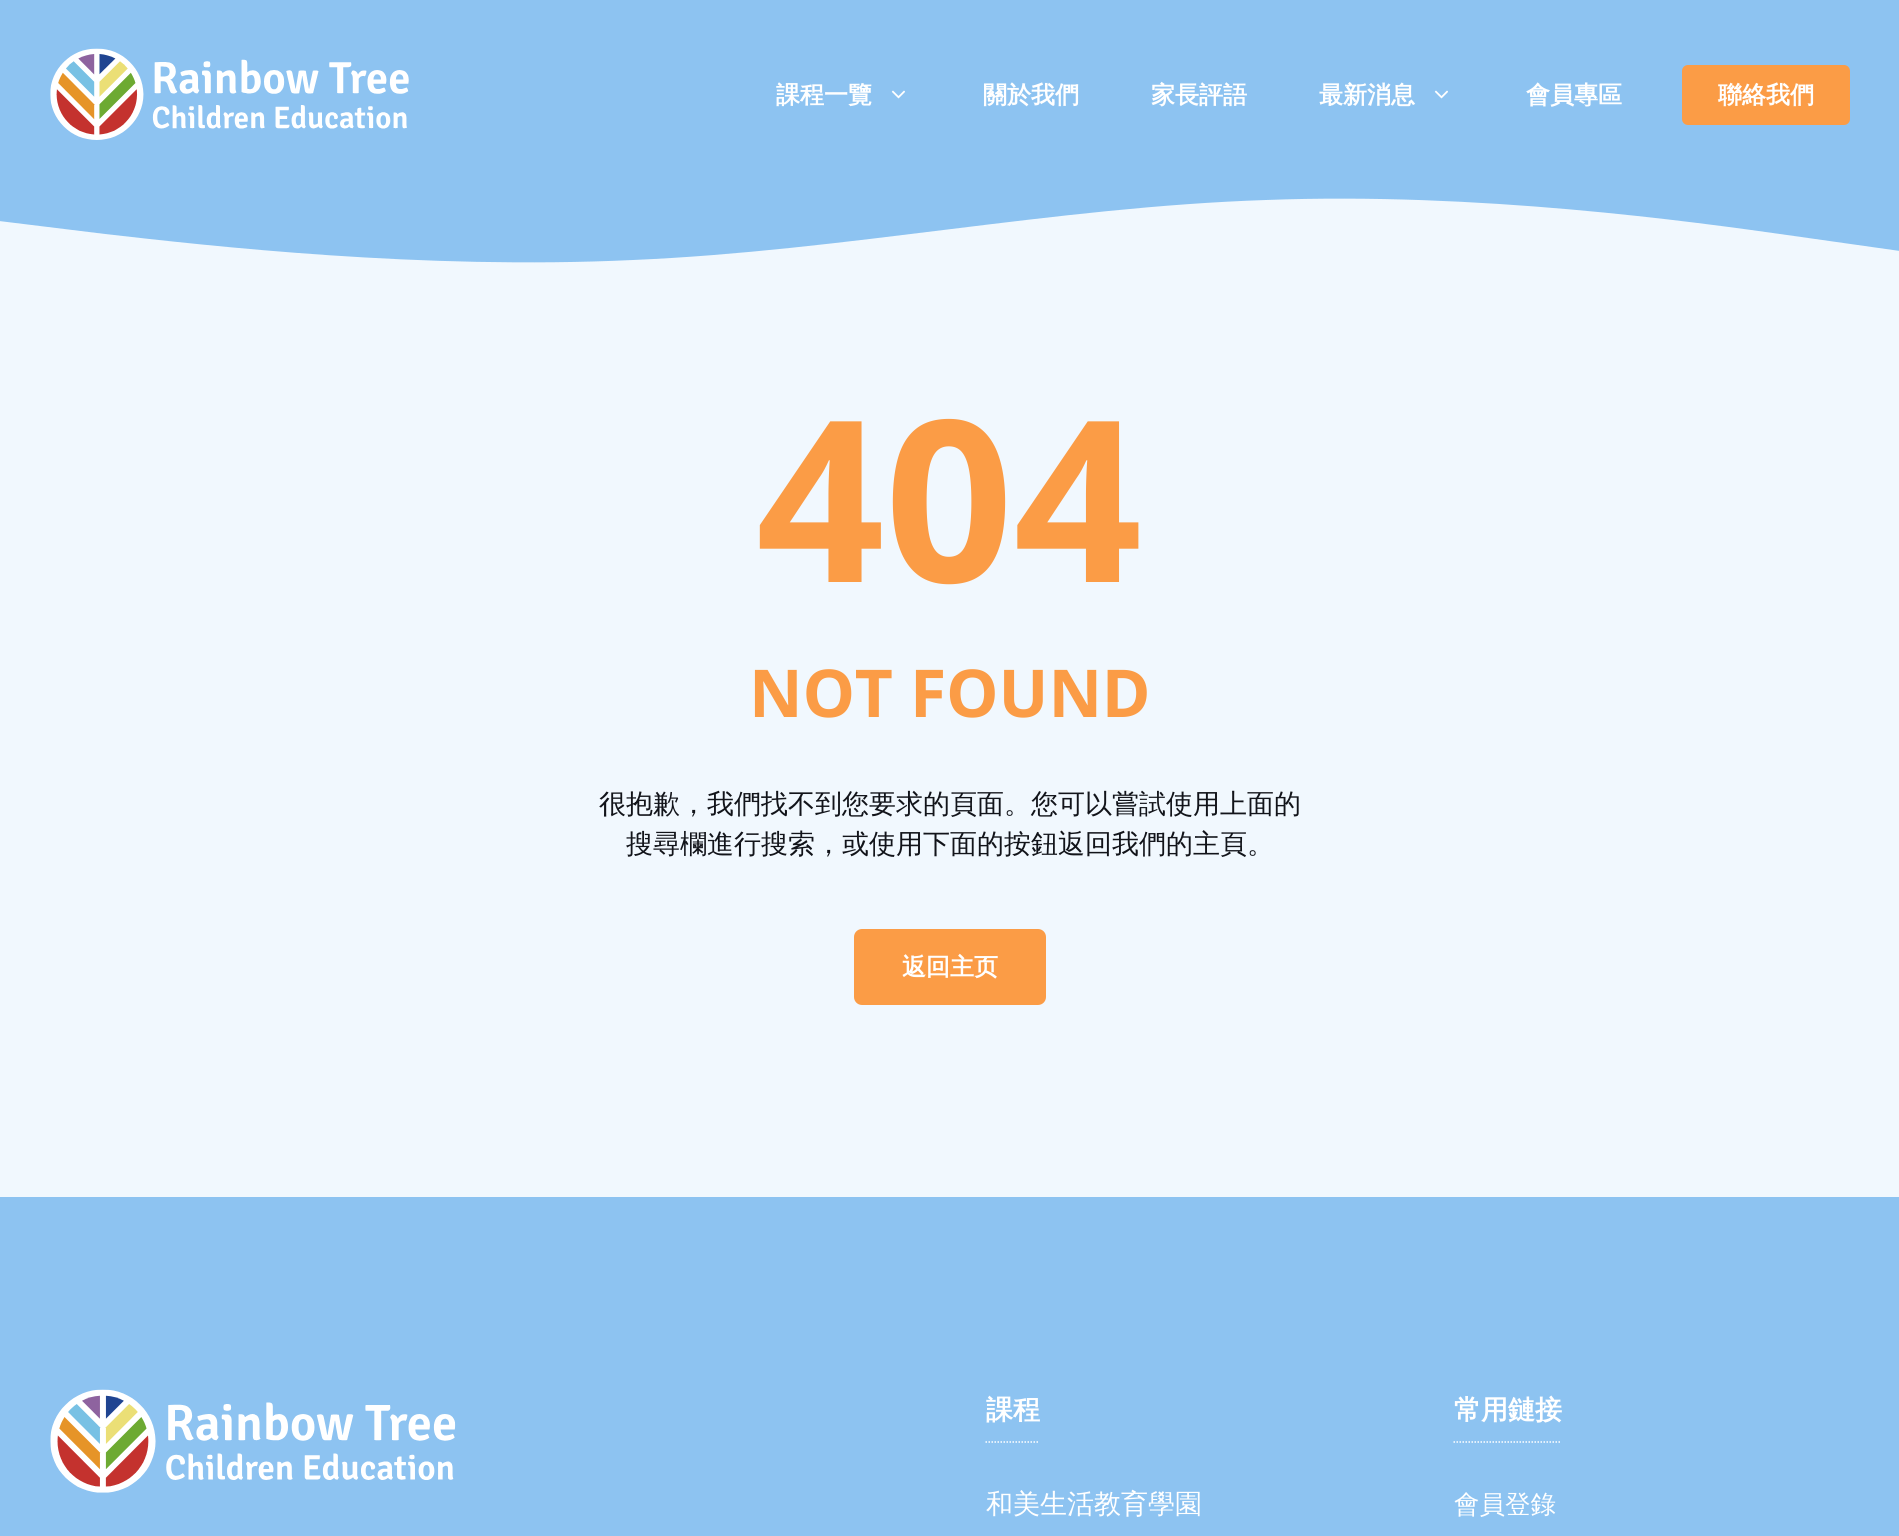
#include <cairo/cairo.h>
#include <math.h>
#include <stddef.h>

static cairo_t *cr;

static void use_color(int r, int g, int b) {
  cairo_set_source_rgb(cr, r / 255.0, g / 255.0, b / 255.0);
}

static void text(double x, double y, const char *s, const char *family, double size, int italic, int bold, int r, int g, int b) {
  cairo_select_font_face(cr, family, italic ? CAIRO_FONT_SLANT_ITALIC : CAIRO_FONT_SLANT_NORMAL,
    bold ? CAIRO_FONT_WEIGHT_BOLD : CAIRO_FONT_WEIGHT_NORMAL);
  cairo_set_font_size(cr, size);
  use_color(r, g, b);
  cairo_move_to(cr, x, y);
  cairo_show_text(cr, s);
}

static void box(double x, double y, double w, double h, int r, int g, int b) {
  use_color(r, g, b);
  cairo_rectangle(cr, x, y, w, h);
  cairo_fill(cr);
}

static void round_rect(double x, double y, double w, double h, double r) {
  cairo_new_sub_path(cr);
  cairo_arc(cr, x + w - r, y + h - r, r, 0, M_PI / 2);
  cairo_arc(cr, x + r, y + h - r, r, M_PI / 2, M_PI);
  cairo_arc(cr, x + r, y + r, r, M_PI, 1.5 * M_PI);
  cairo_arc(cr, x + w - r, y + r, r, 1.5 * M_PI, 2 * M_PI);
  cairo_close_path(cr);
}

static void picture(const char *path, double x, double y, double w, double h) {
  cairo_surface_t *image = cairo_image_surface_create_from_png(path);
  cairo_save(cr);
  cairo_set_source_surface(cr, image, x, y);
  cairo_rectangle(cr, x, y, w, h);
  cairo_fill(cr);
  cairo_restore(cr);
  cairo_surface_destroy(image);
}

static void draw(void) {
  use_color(141, 195, 241);
  cairo_paint(cr);
  picture("img_01.png", 50, 48, 359, 92);
  picture("img_02.png", 891, 90, 14, 9);
  picture("img_02.png", 1434, 90, 14, 9);
  use_color(251, 156, 70);
  round_rect(1682, 65, 168, 60, 6);
  cairo_fill(cr);
  box(0, 198, 1899, 999, 241, 248, 254);
  cairo_save(cr);
  cairo_rectangle(cr, 0, 188, 1899, 75);
  cairo_clip(cr);
  use_color(141, 195, 241);
  cairo_new_path(cr);
  cairo_move_to(cr, -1, 187);
  cairo_line_to(cr, 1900, 187);
  cairo_line_to(cr, 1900, 251);
  cairo_line_to(cr, 1794, 236);
  cairo_curve_to(cr, 1689, 221, 1477, 192, 1266, 200);
  cairo_curve_to(cr, 1055, 207, 844, 251, 633, 260);
  cairo_curve_to(cr, 422, 270, 210, 246, 105, 234);
  cairo_line_to(cr, -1, 221);
  cairo_close_path(cr);
  cairo_fill(cr);
  cairo_restore(cr);
  use_color(251, 156, 70);
  round_rect(854, 929, 192, 76, 8);
  cairo_fill(cr);
  picture("img_03.png", 50, 1389, 406, 104);
  cairo_new_path(cr);
  cairo_move_to(cr, 985.5, 1442);
  cairo_line_to(cr, 1039.5, 1442);
  use_color(255, 255, 255);
  cairo_set_line_width(cr, 1.5);
  cairo_set_dash(cr, (double[]){1.5, 1.5}, 2, 0);
  cairo_stroke(cr);
  cairo_new_path(cr);
  cairo_move_to(cr, 1453.5, 1442);
  cairo_line_to(cr, 1561.5, 1442);
  cairo_stroke(cr);
  text(776, 103, "課程一覽", "WenQuanYi Zen Hei", 24, 0, 1, 255, 255, 255);
  text(983, 103, "關於我們", "WenQuanYi Zen Hei", 24, 0, 1, 255, 255, 255);
  text(1151, 103, "家長評語", "WenQuanYi Zen Hei", 24, 0, 1, 255, 255, 255);
  text(1319, 103, "最新消息", "WenQuanYi Zen Hei", 24, 0, 1, 255, 255, 255);
  text(1526, 103, "會員專區", "WenQuanYi Zen Hei", 24, 0, 1, 255, 255, 255);
  text(1718, 103, "聯絡我們", "WenQuanYi Zen Hei", 24, 0, 1, 255, 255, 255);
  text(756, 582, "404", "Noto Sans", 225, 0, 1, 251, 156, 70);
  text(749, 717, "NOT FOUND", "Noto Sans", 66, 0, 1, 251, 156, 70);
  text(599, 813, "很抱歉，我們找不到您要求的頁面。您可以嘗試使用上面的", "WenQuanYi Zen Hei Medium", 27, 0, 0, 18, 20, 26);
  text(626, 853, "搜尋欄進行搜索，或使用下面的按鈕返回我們的主頁。", "WenQuanYi Zen Hei Medium", 27, 0, 0, 18, 20, 26);
  text(902, 975, "返回主页", "WenQuanYi Zen Hei", 24, 0, 1, 255, 255, 255);
  text(986, 1419, "課程", "WenQuanYi Zen Hei", 27, 0, 1, 255, 255, 255);
  text(986, 1513, "和美生活教育學園", "WenQuanYi Zen Hei Medium", 27, 0, 0, 255, 255, 255);
  text(1454, 1419, "常用鏈接", "WenQuanYi Zen Hei", 27, 0, 1, 255, 255, 255);
  text(1454, 1513, "會員登錄", "WenQuanYi Zen Hei Medium", 25.5, 0, 0, 255, 255, 255);
}

int main(void) {
  cairo_surface_t *surface = cairo_image_surface_create(CAIRO_FORMAT_RGB24, 1899, 1536);
  cr = cairo_create(surface);
  cairo_font_options_t *options = cairo_font_options_create();
  cairo_font_options_set_hint_metrics(options, CAIRO_HINT_METRICS_OFF);
  cairo_font_options_set_hint_style(options, CAIRO_HINT_STYLE_NONE);
  cairo_set_font_options(cr, options);
  cairo_set_miter_limit(cr, 4);
  draw();
  cairo_surface_write_to_png(surface, "out.png");
  cairo_font_options_destroy(options);
  cairo_destroy(cr);
  cairo_surface_destroy(surface);
  return 0;
}
